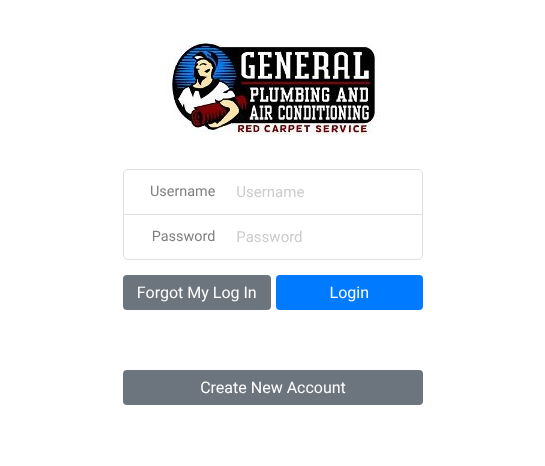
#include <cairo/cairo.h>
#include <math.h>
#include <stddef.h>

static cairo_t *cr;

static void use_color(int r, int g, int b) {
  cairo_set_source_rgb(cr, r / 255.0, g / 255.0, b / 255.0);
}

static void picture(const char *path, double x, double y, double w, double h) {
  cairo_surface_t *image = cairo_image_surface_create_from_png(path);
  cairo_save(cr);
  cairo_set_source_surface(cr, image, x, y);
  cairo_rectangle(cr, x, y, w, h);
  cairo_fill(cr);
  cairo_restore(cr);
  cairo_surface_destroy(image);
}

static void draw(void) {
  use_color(255, 255, 255);
  cairo_paint(cr);
  picture("img_01.png", 165, 40, 216, 95);
  picture("img_02.png", 123, 169, 300, 236);
}

int main(void) {
  cairo_surface_t *surface = cairo_image_surface_create(CAIRO_FORMAT_RGB24, 545, 466);
  cr = cairo_create(surface);
  cairo_font_options_t *options = cairo_font_options_create();
  cairo_font_options_set_hint_metrics(options, CAIRO_HINT_METRICS_OFF);
  cairo_font_options_set_hint_style(options, CAIRO_HINT_STYLE_NONE);
  cairo_set_font_options(cr, options);
  cairo_set_miter_limit(cr, 4);
  draw();
  cairo_surface_write_to_png(surface, "out.png");
  cairo_font_options_destroy(options);
  cairo_destroy(cr);
  cairo_surface_destroy(surface);
  return 0;
}
